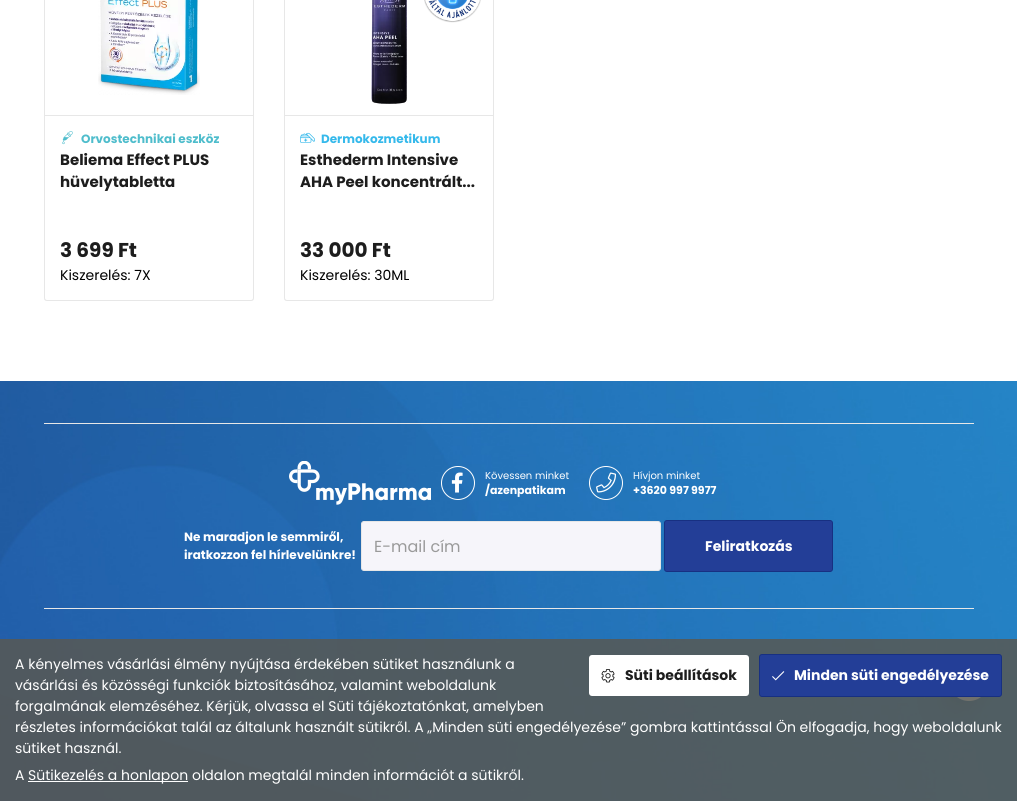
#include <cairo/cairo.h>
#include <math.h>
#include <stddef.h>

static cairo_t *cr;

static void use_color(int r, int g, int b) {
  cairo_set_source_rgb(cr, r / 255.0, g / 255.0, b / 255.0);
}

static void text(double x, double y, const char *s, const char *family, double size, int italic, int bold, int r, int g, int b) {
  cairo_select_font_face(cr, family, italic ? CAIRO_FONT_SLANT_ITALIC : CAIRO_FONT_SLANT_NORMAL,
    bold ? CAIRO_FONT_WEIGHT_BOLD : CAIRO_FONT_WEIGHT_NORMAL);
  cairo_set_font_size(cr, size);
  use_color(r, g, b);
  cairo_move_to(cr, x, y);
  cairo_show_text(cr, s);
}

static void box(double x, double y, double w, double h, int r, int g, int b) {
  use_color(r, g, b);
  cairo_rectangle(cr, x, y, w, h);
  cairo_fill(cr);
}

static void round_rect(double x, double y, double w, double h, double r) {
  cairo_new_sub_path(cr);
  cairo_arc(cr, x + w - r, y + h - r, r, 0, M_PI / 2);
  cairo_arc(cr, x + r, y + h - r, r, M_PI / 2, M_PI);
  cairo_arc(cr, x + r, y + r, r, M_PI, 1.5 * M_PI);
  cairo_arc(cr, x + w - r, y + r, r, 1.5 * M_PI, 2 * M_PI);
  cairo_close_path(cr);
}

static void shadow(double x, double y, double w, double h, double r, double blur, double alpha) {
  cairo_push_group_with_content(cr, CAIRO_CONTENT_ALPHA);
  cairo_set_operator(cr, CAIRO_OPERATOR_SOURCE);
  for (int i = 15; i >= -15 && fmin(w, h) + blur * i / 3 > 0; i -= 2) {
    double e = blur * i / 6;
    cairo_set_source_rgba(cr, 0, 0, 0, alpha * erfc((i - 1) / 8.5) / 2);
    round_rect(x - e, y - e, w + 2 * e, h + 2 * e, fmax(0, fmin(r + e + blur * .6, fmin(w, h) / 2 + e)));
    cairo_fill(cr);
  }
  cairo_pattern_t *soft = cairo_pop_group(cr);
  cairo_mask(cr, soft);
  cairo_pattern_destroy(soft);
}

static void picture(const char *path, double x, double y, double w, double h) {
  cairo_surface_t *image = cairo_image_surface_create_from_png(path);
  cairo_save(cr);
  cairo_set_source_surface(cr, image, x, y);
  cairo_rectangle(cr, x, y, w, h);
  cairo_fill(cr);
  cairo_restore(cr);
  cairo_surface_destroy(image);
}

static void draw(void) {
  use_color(255, 255, 255);
  cairo_paint(cr);
  cairo_rectangle(cr, 44.5, -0.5, 209, 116);
  use_color(231, 231, 231);
  cairo_set_line_width(cr, 1);
  cairo_stroke(cr);
  picture("img_01.png", 98, 0, 102, 95);
  cairo_set_fill_rule(cr, CAIRO_FILL_RULE_EVEN_ODD);
  cairo_new_path(cr);
  cairo_move_to(cr, 44, 116);
  cairo_line_to(cr, 254, 116);
  cairo_line_to(cr, 254, 298);
  cairo_curve_to(cr, 254, 300, 253, 301, 251, 301);
  cairo_line_to(cr, 47, 301);
  cairo_curve_to(cr, 45, 301, 44, 300, 44, 298);
  cairo_close_path(cr);
  cairo_move_to(cr, 45, 116);
  cairo_line_to(cr, 253, 116);
  cairo_line_to(cr, 253, 298);
  cairo_curve_to(cr, 253, 299, 252, 300, 251, 300);
  cairo_line_to(cr, 47, 300);
  cairo_curve_to(cr, 46, 300, 45, 299, 45, 298);
  cairo_close_path(cr);
  cairo_fill(cr);
  picture("img_02.png", 62, 131, 11, 14);
  cairo_rectangle(cr, 284.5, -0.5, 209, 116);
  cairo_stroke(cr);
  picture("img_03.png", 371, 0, 36, 104);
  picture("img_04.png", 424, 0, 57, 23);
  cairo_new_path(cr);
  cairo_move_to(cr, 284, 116);
  cairo_line_to(cr, 494, 116);
  cairo_line_to(cr, 494, 298);
  cairo_curve_to(cr, 494, 300, 493, 301, 491, 301);
  cairo_line_to(cr, 287, 301);
  cairo_curve_to(cr, 285, 301, 284, 300, 284, 298);
  cairo_close_path(cr);
  cairo_move_to(cr, 285, 116);
  cairo_line_to(cr, 493, 116);
  cairo_line_to(cr, 493, 298);
  cairo_curve_to(cr, 493, 299, 492, 300, 491, 300);
  cairo_line_to(cr, 287, 300);
  cairo_curve_to(cr, 286, 300, 285, 299, 285, 298);
  cairo_close_path(cr);
  cairo_fill(cr);
  picture("img_05.png", 300, 132, 15, 11);
  picture("img_06.png", 0, 381, 1017, 420);
  box(44, 423, 930, 1, 231, 231, 231);
  box(44, 608, 930, 1, 231, 231, 231);
  picture("img_07.png", 289, 461, 142, 44);
  cairo_arc(cr, 458, 483, 16.5, 0, 2 * M_PI);
  use_color(255, 255, 255);
  cairo_stroke(cr);
  picture("img_08.png", 451, 472, 12, 21);
  cairo_arc(cr, 606, 483, 16.5, 0, 2 * M_PI);
  cairo_stroke(cr);
  picture("img_09.png", 596, 472, 20, 21);
  use_color(246, 245, 250);
  round_rect(361.5, 521.5, 299, 49, 2.5);
  cairo_fill_preserve(cr);
  use_color(231, 231, 231);
  cairo_stroke(cr);
  use_color(35, 62, 151);
  round_rect(664.5, 520.5, 168, 51, 2.5);
  cairo_fill_preserve(cr);
  use_color(23, 48, 130);
  cairo_stroke(cr);
  use_color(0, 0, 0);
  shadow(946, 666, 40, 40, 20, 6.5, 0.1);
  shadow(935, 680, 40, 40, 20, 12, 0.09);
  use_color(255, 255, 255);
  cairo_arc(cr, 969, 681, 20, 0, 2 * M_PI);
  cairo_fill(cr);
  cairo_set_source_rgba(cr, 0.349, 0.345, 0.325, 0.85);
  cairo_rectangle(cr, 0, 639, 1017, 162);
  cairo_fill(cr);
  use_color(255, 255, 255);
  round_rect(589, 655, 160, 41, 3);
  cairo_fill(cr);
  picture("img_10.png", 601, 669, 14, 14);
  use_color(35, 62, 151);
  round_rect(759.5, 654.5, 242, 42, 2.5);
  cairo_fill_preserve(cr);
  use_color(23, 48, 130);
  cairo_stroke(cr);
  picture("img_11.png", 772, 671, 13, 10);
  box(28, 781, 160, 1, 255, 255, 255);
  text(81, 143, "Orvostechnikai eszköz", "Poppins", 12, 0, 1, 79, 189, 204);
  text(60, 165, "Beliema Effect PLUS", "Poppins", 15, 0, 1, 29, 29, 29);
  text(60, 187, "hüvelytabletta", "Poppins", 15, 0, 1, 29, 29, 29);
  text(60, 257, "3 699 Ft", "Poppins", 20, 0, 1, 29, 29, 29);
  text(60, 280, "Kiszerelés: 7X", "Poppins", 14, 0, 0, 0, 0, 0);
  text(321, 143, "Dermokozmetikum", "Poppins", 12, 0, 1, 53, 185, 235);
  text(300, 165, "Esthederm Intensive", "Poppins", 15, 0, 1, 29, 29, 29);
  text(300, 187, "AHA Peel koncentrált...", "Poppins", 15, 0, 1, 29, 29, 29);
  text(300, 257, "33 000 Ft", "Poppins", 20, 0, 1, 29, 29, 29);
  text(300, 280, "Kiszerelés: 30ML", "Poppins", 14, 0, 0, 0, 0, 0);
  text(485, 479, "Kövessen minket", "Poppins", 10, 0, 0, 255, 255, 255);
  text(485, 494, "/azenpatikam", "Poppins", 11, 0, 1, 255, 255, 255);
  text(633, 479, "Hívjon minket", "Poppins", 10, 0, 0, 255, 255, 255);
  text(633, 494, "+3620 997 9977", "Poppins", 11, 0, 1, 255, 255, 255);
  text(184, 541, "Ne maradjon le semmiről,", "Poppins", 12, 0, 1, 255, 255, 255);
  text(184, 559, "iratkozzon fel hírlevelünkre!", "Poppins", 12, 0, 1, 255, 255, 255);
  text(374, 552, "E-mail cím", "Poppins", 16, 0, 0, 154, 154, 154);
  text(705, 551, "Feliratkozás", "Poppins", 14, 0, 1, 255, 255, 255);
  text(15, 669, "A kényelmes vásárlási élmény nyújtása érdekében sütiket használunk a", "Poppins", 14, 0, 0, 255, 255, 255);
  text(15, 690, "vásárlási és közösségi funkciók biztosításához, valamint weboldalunk", "Poppins", 14, 0, 0, 255, 255, 255);
  text(15, 711, "forgalmának elemzéséhez. Kérjük, olvassa el Süti tájékoztatónkat, amelyben", "Poppins", 14, 0, 0, 255, 255, 255);
  text(15, 732, "részletes információkat talál az általunk használt sütikről. A „Minden süti engedélyezése” gombra kattintással Ön elfogadja, hogy weboldalunk", "Poppins", 14, 0, 0, 255, 255, 255);
  text(15, 753, "sütiket használ.", "Poppins", 14, 0, 0, 255, 255, 255);
  text(625, 680, "Süti beállítások", "Poppins", 14, 0, 1, 29, 29, 29);
  text(794, 680, "Minden süti engedélyezése", "Poppins", 14, 0, 1, 255, 255, 255);
  text(15, 780, "A", "Poppins", 14, 0, 0, 255, 255, 255);
  text(28, 780, "Sütikezelés a honlapon oldalon megtalál minden információt a sütikről.", "Poppins", 14, 0, 0, 255, 255, 255);
}

int main(void) {
  cairo_surface_t *surface = cairo_image_surface_create(CAIRO_FORMAT_RGB24, 1017, 801);
  cr = cairo_create(surface);
  cairo_font_options_t *options = cairo_font_options_create();
  cairo_font_options_set_hint_metrics(options, CAIRO_HINT_METRICS_OFF);
  cairo_font_options_set_hint_style(options, CAIRO_HINT_STYLE_NONE);
  cairo_set_font_options(cr, options);
  cairo_set_miter_limit(cr, 4);
  draw();
  cairo_surface_write_to_png(surface, "out.png");
  cairo_font_options_destroy(options);
  cairo_destroy(cr);
  cairo_surface_destroy(surface);
  return 0;
}
